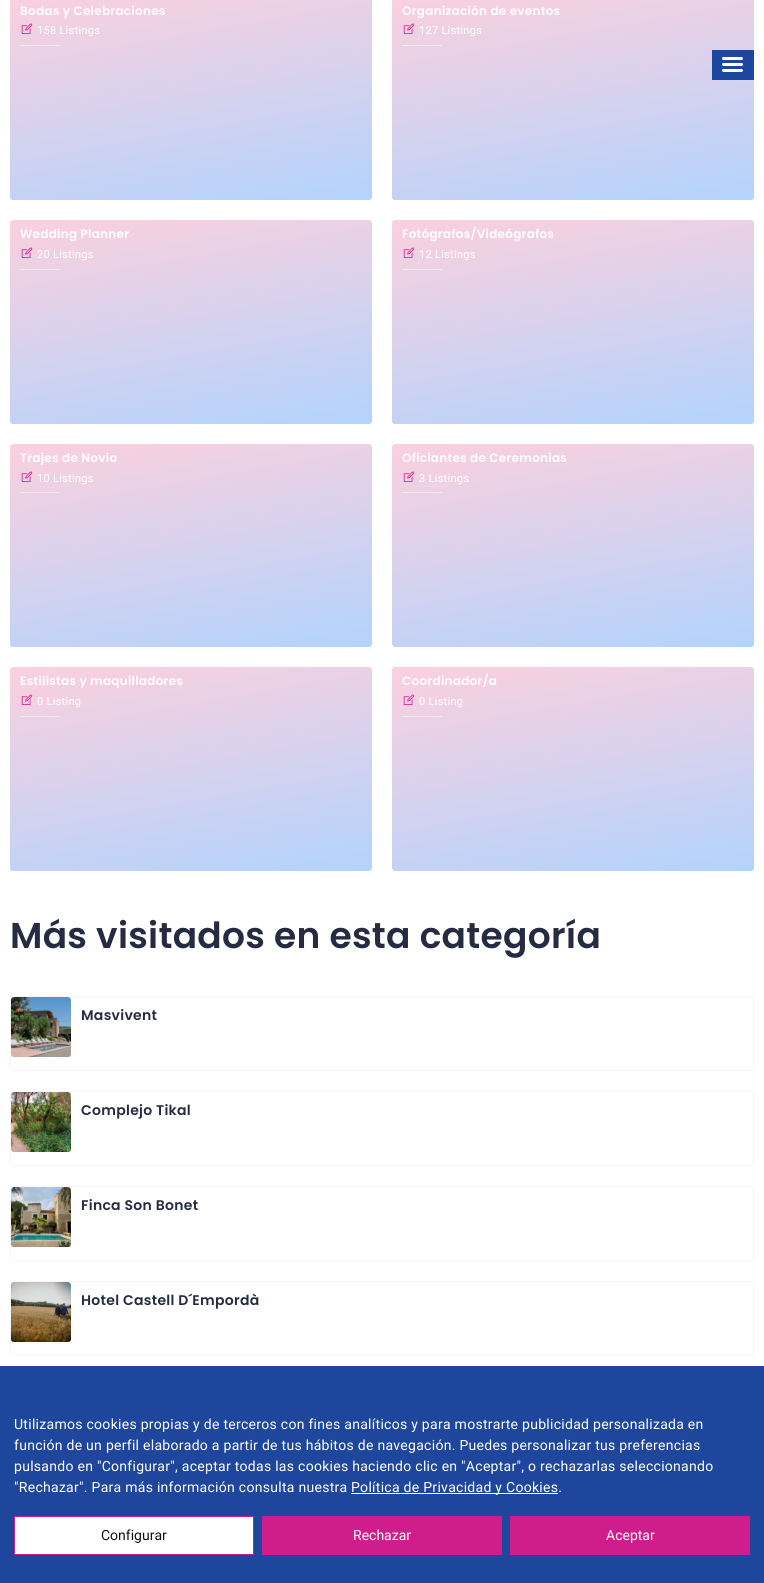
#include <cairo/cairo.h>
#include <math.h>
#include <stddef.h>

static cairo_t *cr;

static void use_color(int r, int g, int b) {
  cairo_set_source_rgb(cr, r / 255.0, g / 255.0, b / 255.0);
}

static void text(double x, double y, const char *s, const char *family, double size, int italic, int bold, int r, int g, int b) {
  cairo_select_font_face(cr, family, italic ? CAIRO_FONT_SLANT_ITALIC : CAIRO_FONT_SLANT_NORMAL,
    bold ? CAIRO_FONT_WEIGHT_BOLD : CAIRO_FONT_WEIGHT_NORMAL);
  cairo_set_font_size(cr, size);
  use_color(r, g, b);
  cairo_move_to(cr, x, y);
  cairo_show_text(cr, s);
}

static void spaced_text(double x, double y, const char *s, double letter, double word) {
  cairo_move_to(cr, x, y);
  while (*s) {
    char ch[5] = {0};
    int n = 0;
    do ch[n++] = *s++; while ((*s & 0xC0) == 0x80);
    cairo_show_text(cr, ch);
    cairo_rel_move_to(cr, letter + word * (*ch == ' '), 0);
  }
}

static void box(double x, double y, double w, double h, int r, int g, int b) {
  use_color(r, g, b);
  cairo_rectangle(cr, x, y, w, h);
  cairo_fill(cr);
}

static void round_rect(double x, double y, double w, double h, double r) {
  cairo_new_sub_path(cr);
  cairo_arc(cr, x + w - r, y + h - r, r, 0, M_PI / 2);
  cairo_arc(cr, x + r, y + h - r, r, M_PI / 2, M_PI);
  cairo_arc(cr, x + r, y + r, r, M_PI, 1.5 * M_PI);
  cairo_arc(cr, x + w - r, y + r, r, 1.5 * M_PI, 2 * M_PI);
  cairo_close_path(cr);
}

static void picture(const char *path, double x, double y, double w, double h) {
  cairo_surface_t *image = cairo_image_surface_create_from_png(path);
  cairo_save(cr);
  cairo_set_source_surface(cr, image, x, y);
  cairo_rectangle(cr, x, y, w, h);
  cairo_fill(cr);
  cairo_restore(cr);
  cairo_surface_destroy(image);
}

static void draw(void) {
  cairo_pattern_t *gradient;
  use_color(255, 255, 255);
  cairo_paint(cr);
  gradient = cairo_pattern_create_linear(214, 228, 168, -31);
  cairo_pattern_add_color_stop_rgba(gradient, 0, 0.702, 0.827, 0.992, 1);
  cairo_pattern_add_color_stop_rgba(gradient, 1, 0.984, 0.816, 0.871, 1);
  cairo_set_source(cr, gradient);
  cairo_pattern_destroy(gradient);
  round_rect(10, -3, 362, 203, 3);
  cairo_fill(cr);
  picture("img_01.png", 21, 23, 12, 11);
  box(20, 45, 40, 1, 246, 232, 242);
  gradient = cairo_pattern_create_linear(596, 228, 550, -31);
  cairo_pattern_add_color_stop_rgba(gradient, 0, 0.702, 0.827, 0.992, 1);
  cairo_pattern_add_color_stop_rgba(gradient, 1, 0.984, 0.816, 0.871, 1);
  cairo_set_source(cr, gradient);
  cairo_pattern_destroy(gradient);
  round_rect(392, -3, 362, 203, 3);
  cairo_fill(cr);
  picture("img_01.png", 403, 23, 12, 11);
  box(402, 45, 40, 1, 246, 232, 242);
  gradient = cairo_pattern_create_linear(214, 452, 168, 192);
  cairo_pattern_add_color_stop_rgba(gradient, 0, 0.702, 0.827, 0.992, 1);
  cairo_pattern_add_color_stop_rgba(gradient, 1, 0.984, 0.816, 0.871, 1);
  cairo_set_source(cr, gradient);
  cairo_pattern_destroy(gradient);
  round_rect(10, 220, 362, 204, 3);
  cairo_fill(cr);
  picture("img_02.png", 21, 247, 12, 11);
  box(20, 269, 40, 1, 246, 232, 242);
  gradient = cairo_pattern_create_linear(596, 452, 550, 192);
  cairo_pattern_add_color_stop_rgba(gradient, 0, 0.702, 0.827, 0.992, 1);
  cairo_pattern_add_color_stop_rgba(gradient, 1, 0.984, 0.816, 0.871, 1);
  cairo_set_source(cr, gradient);
  cairo_pattern_destroy(gradient);
  round_rect(392, 220, 362, 204, 3);
  cairo_fill(cr);
  picture("img_02.png", 403, 247, 12, 11);
  box(402, 269, 40, 1, 246, 232, 242);
  gradient = cairo_pattern_create_linear(214, 675, 168, 416);
  cairo_pattern_add_color_stop_rgba(gradient, 0, 0.702, 0.827, 0.992, 1);
  cairo_pattern_add_color_stop_rgba(gradient, 1, 0.984, 0.816, 0.871, 1);
  cairo_set_source(cr, gradient);
  cairo_pattern_destroy(gradient);
  round_rect(10, 444, 362, 203, 3);
  cairo_fill(cr);
  picture("img_03.png", 21, 471, 12, 11);
  box(20, 492, 40, 1, 246, 232, 242);
  gradient = cairo_pattern_create_linear(596, 675, 550, 416);
  cairo_pattern_add_color_stop_rgba(gradient, 0, 0.702, 0.827, 0.992, 1);
  cairo_pattern_add_color_stop_rgba(gradient, 1, 0.984, 0.816, 0.871, 1);
  cairo_set_source(cr, gradient);
  cairo_pattern_destroy(gradient);
  round_rect(392, 444, 362, 203, 3);
  cairo_fill(cr);
  picture("img_03.png", 403, 471, 12, 11);
  box(402, 492, 40, 1, 246, 232, 242);
  gradient = cairo_pattern_create_linear(214, 899, 168, 639);
  cairo_pattern_add_color_stop_rgba(gradient, 0, 0.702, 0.827, 0.992, 1);
  cairo_pattern_add_color_stop_rgba(gradient, 1, 0.984, 0.816, 0.871, 1);
  cairo_set_source(cr, gradient);
  cairo_pattern_destroy(gradient);
  round_rect(10, 667, 362, 204, 3);
  cairo_fill(cr);
  picture("img_02.png", 21, 694, 12, 11);
  box(20, 716, 40, 1, 246, 232, 242);
  gradient = cairo_pattern_create_linear(596, 899, 550, 639);
  cairo_pattern_add_color_stop_rgba(gradient, 0, 0.702, 0.827, 0.992, 1);
  cairo_pattern_add_color_stop_rgba(gradient, 1, 0.984, 0.816, 0.871, 1);
  cairo_set_source(cr, gradient);
  cairo_pattern_destroy(gradient);
  round_rect(392, 667, 362, 204, 3);
  cairo_fill(cr);
  picture("img_02.png", 403, 694, 12, 11);
  box(402, 716, 40, 1, 246, 232, 242);
  round_rect(10.5, 996.5, 743, 74, 2.5);
  use_color(245, 245, 247);
  cairo_set_line_width(cr, 1);
  cairo_stroke(cr);
  picture("img_04.png", 11, 997, 60, 60);
  round_rect(10.5, 1091.5, 743, 74, 2.5);
  cairo_stroke(cr);
  picture("img_05.png", 11, 1092, 60, 60);
  round_rect(10.5, 1186.5, 743, 74, 2.5);
  cairo_stroke(cr);
  picture("img_06.png", 11, 1187, 60, 60);
  round_rect(10.5, 1281.5, 743, 74, 2.5);
  cairo_stroke(cr);
  picture("img_07.png", 11, 1282, 60, 60);
  box(712, 50, 42, 30, 29, 71, 158);
  picture("img_08.png", 722, 57, 21, 15);
  box(0, 1366, 764, 217, 31, 70, 157);
  box(351, 1493, 207, 1, 255, 255, 255);
  cairo_rectangle(cr, 14.5, 1516.5, 239, 38);
  cairo_fill_preserve(cr);
  use_color(208, 29, 140);
  cairo_stroke(cr);
  box(262, 1516, 240, 39, 208, 29, 140);
  box(510, 1516, 240, 39, 208, 29, 140);
  cairo_select_font_face(cr, "Poppins SemiBold", CAIRO_FONT_SLANT_NORMAL, CAIRO_FONT_WEIGHT_NORMAL);
  cairo_set_font_size(cr, 12);
  use_color(255, 255, 255);
  spaced_text(20, 15, "Bodas y Celebraciones", 0.28, 0);
  cairo_select_font_face(cr, "Roboto", CAIRO_FONT_SLANT_NORMAL, CAIRO_FONT_WEIGHT_NORMAL);
  cairo_set_font_size(cr, 11);
  spaced_text(37, 34, "158 Listings", 0.28, 0);
  cairo_select_font_face(cr, "Poppins SemiBold", CAIRO_FONT_SLANT_NORMAL, CAIRO_FONT_WEIGHT_NORMAL);
  cairo_set_font_size(cr, 12);
  spaced_text(402, 15, "Organización de eventos", 0.28, 0);
  cairo_select_font_face(cr, "Roboto", CAIRO_FONT_SLANT_NORMAL, CAIRO_FONT_WEIGHT_NORMAL);
  cairo_set_font_size(cr, 11);
  spaced_text(419, 34, "127 Listings", 0.28, 0);
  cairo_select_font_face(cr, "Poppins SemiBold", CAIRO_FONT_SLANT_NORMAL, CAIRO_FONT_WEIGHT_NORMAL);
  cairo_set_font_size(cr, 12);
  spaced_text(20, 238, "Wedding Planner", 0.28, 0);
  cairo_select_font_face(cr, "Roboto", CAIRO_FONT_SLANT_NORMAL, CAIRO_FONT_WEIGHT_NORMAL);
  cairo_set_font_size(cr, 11);
  spaced_text(37, 258, "20 Listings", 0.28, 0);
  cairo_select_font_face(cr, "Poppins SemiBold", CAIRO_FONT_SLANT_NORMAL, CAIRO_FONT_WEIGHT_NORMAL);
  cairo_set_font_size(cr, 12);
  spaced_text(402, 238, "Fotógrafos/Videógrafos", 0.28, 0);
  cairo_select_font_face(cr, "Roboto", CAIRO_FONT_SLANT_NORMAL, CAIRO_FONT_WEIGHT_NORMAL);
  cairo_set_font_size(cr, 11);
  spaced_text(419, 258, "12 Listings", 0.28, 0);
  cairo_select_font_face(cr, "Poppins SemiBold", CAIRO_FONT_SLANT_NORMAL, CAIRO_FONT_WEIGHT_NORMAL);
  cairo_set_font_size(cr, 12);
  spaced_text(20, 462, "Trajes de Novio", 0.28, 0);
  cairo_select_font_face(cr, "Roboto", CAIRO_FONT_SLANT_NORMAL, CAIRO_FONT_WEIGHT_NORMAL);
  cairo_set_font_size(cr, 11);
  spaced_text(37, 482, "10 Listings", 0.28, 0);
  cairo_select_font_face(cr, "Poppins SemiBold", CAIRO_FONT_SLANT_NORMAL, CAIRO_FONT_WEIGHT_NORMAL);
  cairo_set_font_size(cr, 12);
  spaced_text(402, 462, "Oficiantes de Ceremonias", 0.28, 0);
  cairo_select_font_face(cr, "Roboto", CAIRO_FONT_SLANT_NORMAL, CAIRO_FONT_WEIGHT_NORMAL);
  cairo_set_font_size(cr, 11);
  spaced_text(419, 482, "3 Listings", 0.28, 0);
  cairo_select_font_face(cr, "Poppins SemiBold", CAIRO_FONT_SLANT_NORMAL, CAIRO_FONT_WEIGHT_NORMAL);
  cairo_set_font_size(cr, 12);
  spaced_text(20, 685, "Estilistas y maquilladores", 0.28, 0);
  cairo_select_font_face(cr, "Roboto", CAIRO_FONT_SLANT_NORMAL, CAIRO_FONT_WEIGHT_NORMAL);
  cairo_set_font_size(cr, 11);
  spaced_text(37, 705, "0 Listing", 0.28, 0);
  cairo_select_font_face(cr, "Poppins SemiBold", CAIRO_FONT_SLANT_NORMAL, CAIRO_FONT_WEIGHT_NORMAL);
  cairo_set_font_size(cr, 12);
  spaced_text(402, 685, "Coordinador/a", 0.28, 0);
  cairo_select_font_face(cr, "Roboto", CAIRO_FONT_SLANT_NORMAL, CAIRO_FONT_WEIGHT_NORMAL);
  cairo_set_font_size(cr, 11);
  spaced_text(419, 705, "0 Listing", 0.28, 0);
  cairo_select_font_face(cr, "Poppins SemiBold", CAIRO_FONT_SLANT_NORMAL, CAIRO_FONT_WEIGHT_NORMAL);
  cairo_set_font_size(cr, 36);
  use_color(37, 44, 65);
  spaced_text(10, 948, "Más visitados en esta categoría", 0.28, 0);
  cairo_set_font_size(cr, 14);
  spaced_text(81, 1020, "Masvivent", 0.28, 0);
  spaced_text(81, 1115, "Complejo Tikal", 0.28, 0);
  spaced_text(81, 1210, "Finca Son Bonet", 0.28, 0);
  spaced_text(81, 1305, "Hotel Castell D´Empordà", 0.28, 0);
  cairo_select_font_face(cr, "Roboto", CAIRO_FONT_SLANT_NORMAL, CAIRO_FONT_WEIGHT_NORMAL);
  use_color(255, 255, 255);
  spaced_text(14, 1429, "Utilizamos cookies propias y de terceros con fines analíticos y para mostrarte publicidad personalizada en", 0.28, 0);
  spaced_text(14, 1450, "función de un perfil elaborado a partir de tus hábitos de navegación. Puedes personalizar tus preferencias", 0.28, 0);
  spaced_text(14, 1471, "pulsando en \"Configurar\", aceptar todas las cookies haciendo clic en \"Aceptar\", o rechazarlas seleccionando", 0.28, 0);
  spaced_text(14, 1492, "\"Rechazar\". Para más información consulta nuestra", 0.28, 0);
  spaced_text(351, 1492, "Política de Privacidad y Cookies.", 0.28, 0);
  text(101, 1540, "Configurar", "Roboto", 14, 0, 0, 17, 17, 17);
  text(353, 1540, "Rechazar", "Roboto", 14, 0, 0, 255, 255, 255);
  text(606, 1540, "Aceptar", "Roboto", 14, 0, 0, 255, 255, 255);
}

int main(void) {
  cairo_surface_t *surface = cairo_image_surface_create(CAIRO_FORMAT_RGB24, 764, 1583);
  cr = cairo_create(surface);
  cairo_font_options_t *options = cairo_font_options_create();
  cairo_font_options_set_hint_metrics(options, CAIRO_HINT_METRICS_OFF);
  cairo_font_options_set_hint_style(options, CAIRO_HINT_STYLE_NONE);
  cairo_set_font_options(cr, options);
  cairo_set_miter_limit(cr, 4);
  draw();
  cairo_surface_write_to_png(surface, "out.png");
  cairo_font_options_destroy(options);
  cairo_destroy(cr);
  cairo_surface_destroy(surface);
  return 0;
}
